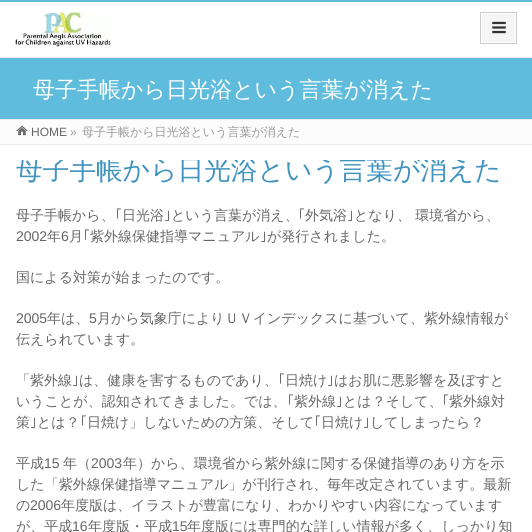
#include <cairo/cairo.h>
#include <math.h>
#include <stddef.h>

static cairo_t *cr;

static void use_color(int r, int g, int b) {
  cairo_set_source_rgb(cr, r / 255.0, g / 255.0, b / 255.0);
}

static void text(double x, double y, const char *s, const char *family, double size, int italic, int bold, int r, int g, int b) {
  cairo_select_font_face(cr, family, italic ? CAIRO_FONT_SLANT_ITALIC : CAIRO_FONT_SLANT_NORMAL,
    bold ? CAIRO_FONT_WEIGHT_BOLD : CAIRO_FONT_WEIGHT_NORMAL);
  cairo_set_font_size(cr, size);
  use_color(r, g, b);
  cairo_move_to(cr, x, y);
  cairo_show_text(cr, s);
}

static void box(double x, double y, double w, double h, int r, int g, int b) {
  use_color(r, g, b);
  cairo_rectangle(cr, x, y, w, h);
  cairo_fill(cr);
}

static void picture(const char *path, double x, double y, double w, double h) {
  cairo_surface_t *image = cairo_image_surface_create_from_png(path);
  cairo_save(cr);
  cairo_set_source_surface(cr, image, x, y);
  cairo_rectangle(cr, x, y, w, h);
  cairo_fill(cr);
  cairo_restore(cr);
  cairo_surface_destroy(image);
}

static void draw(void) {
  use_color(255, 255, 255);
  cairo_paint(cr);
  box(0, 0, 532, 2, 95, 188, 221);
  picture("img_01.png", 15, 12, 96, 35);
  box(482, 14, 33, 28, 245, 245, 245);
  cairo_rectangle(cr, 480.5, 12.5, 36, 31);
  use_color(204, 204, 204);
  cairo_set_line_width(cr, 1);
  cairo_stroke(cr);
  picture("img_02.png", 492, 21, 14, 13);
  box(0, 58, 532, 61, 95, 188, 221);
  box(0, 57, 532, 1, 233, 233, 233);
  box(0, 119, 532, 1, 233, 233, 233);
  box(0, 120, 532, 24, 252, 252, 252);
  picture("img_03.png", 16, 125, 12, 11);
  box(0, 144, 532, 1, 233, 233, 233);
  text(33, 97, "母子手帳から日光浴という言葉が消えた", "WenQuanYi Zen Hei Medium", 22, 0, 0, 255, 255, 255);
  text(31, 136, "HOME", "Liberation Sans", 12, 0, 0, 102, 102, 102);
  text(70, 136, "»", "Liberation Sans", 12, 0, 0, 153, 153, 153);
  text(82, 136, "母子手帳から日光浴という言葉が消えた", "WenQuanYi Zen Hei Medium", 12, 0, 0, 153, 153, 153);
  cairo_save(cr);
  cairo_rectangle(cr, 16, 160, 500, 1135);
  cairo_clip(cr);
  text(16, 179, "母子手帳から日光浴という言葉が消えた", "WenQuanYi Zen Hei Medium", 26.7, 0, 0, 65, 147, 191);
  cairo_restore(cr);
  text(16, 220, "母子手帳から、", "WenQuanYi Zen Hei Medium", 14, 0, 0, 102, 102, 102);
  text(115, 220, "｢", "IPAPGothic", 14, 0, 0, 102, 102, 102);
  text(122, 220, "日光浴", "WenQuanYi Zen Hei Medium", 14, 0, 0, 102, 102, 102);
  text(164, 220, "｣", "IPAPGothic", 14, 0, 0, 102, 102, 102);
  text(171, 220, "という言葉が消え、", "WenQuanYi Zen Hei Medium", 14, 0, 0, 102, 102, 102);
  text(298, 220, "｢", "IPAPGothic", 14, 0, 0, 102, 102, 102);
  text(305, 220, "外気浴", "WenQuanYi Zen Hei Medium", 14, 0, 0, 102, 102, 102);
  text(347, 220, "｣", "IPAPGothic", 14, 0, 0, 102, 102, 102);
  text(354, 220, "となり、 環境省から、", "WenQuanYi Zen Hei Medium", 14, 0, 0, 102, 102, 102);
  text(16, 241, "2002", "Liberation Sans", 14, 0, 0, 102, 102, 102);
  text(47, 241, "年", "WenQuanYi Zen Hei Medium", 14, 0, 0, 102, 102, 102);
  text(61, 241, "6", "Liberation Sans", 14, 0, 0, 102, 102, 102);
  text(69, 241, "月", "WenQuanYi Zen Hei Medium", 14, 0, 0, 102, 102, 102);
  text(83, 241, "｢", "IPAPGothic", 14, 0, 0, 102, 102, 102);
  text(90, 241, "紫外線保健指導マニュアル", "WenQuanYi Zen Hei Medium", 14, 0, 0, 102, 102, 102);
  text(260, 241, "｣", "IPAPGothic", 14, 0, 0, 102, 102, 102);
  text(267, 241, "が発行されました。", "WenQuanYi Zen Hei Medium", 14, 0, 0, 102, 102, 102);
  text(16, 282, "国による対策が始まったのです。", "WenQuanYi Zen Hei Medium", 14, 0, 0, 102, 102, 102);
  text(16, 323, "2005", "Liberation Sans", 14, 0, 0, 102, 102, 102);
  text(47, 323, "年は、", "WenQuanYi Zen Hei Medium", 14, 0, 0, 102, 102, 102);
  text(89, 323, "5", "Liberation Sans", 14, 0, 0, 102, 102, 102);
  text(97, 323, "月から気象庁によりＵＶインデックスに基づいて、紫外線情報が", "WenQuanYi Zen Hei Medium", 14, 0, 0, 102, 102, 102);
  text(16, 344, "伝えられています。", "WenQuanYi Zen Hei Medium", 14, 0, 0, 102, 102, 102);
  text(16, 385, "「紫外線", "WenQuanYi Zen Hei Medium", 14, 0, 0, 102, 102, 102);
  text(72, 385, "｣", "IPAPGothic", 14, 0, 0, 102, 102, 102);
  text(79, 385, "は、健康を害するものであり、", "WenQuanYi Zen Hei Medium", 14, 0, 0, 102, 102, 102);
  text(278, 385, "｢", "IPAPGothic", 14, 0, 0, 102, 102, 102);
  text(285, 385, "日焼け", "WenQuanYi Zen Hei Medium", 14, 0, 0, 102, 102, 102);
  text(327, 385, "｣", "IPAPGothic", 14, 0, 0, 102, 102, 102);
  text(334, 385, "はお肌に悪影響を及ぼすと", "WenQuanYi Zen Hei Medium", 14, 0, 0, 102, 102, 102);
  text(16, 406, "いうことが、認知されてきました。では、", "WenQuanYi Zen Hei Medium", 14, 0, 0, 102, 102, 102);
  text(287, 406, "｢", "IPAPGothic", 14, 0, 0, 102, 102, 102);
  text(294, 406, "紫外線", "WenQuanYi Zen Hei Medium", 14, 0, 0, 102, 102, 102);
  text(336, 406, "｣", "IPAPGothic", 14, 0, 0, 102, 102, 102);
  text(343, 406, "とは？そして、", "WenQuanYi Zen Hei Medium", 14, 0, 0, 102, 102, 102);
  text(442, 406, "｢", "IPAPGothic", 14, 0, 0, 102, 102, 102);
  text(449, 406, "紫外線対", "WenQuanYi Zen Hei Medium", 14, 0, 0, 102, 102, 102);
  text(16, 427, "策", "WenQuanYi Zen Hei Medium", 14, 0, 0, 102, 102, 102);
  text(30, 427, "｣", "IPAPGothic", 14, 0, 0, 102, 102, 102);
  text(37, 427, "とは？", "WenQuanYi Zen Hei Medium", 14, 0, 0, 102, 102, 102);
  text(80, 427, "｢", "IPAPGothic", 14, 0, 0, 102, 102, 102);
  text(87, 427, "日焼け」しないための方策、そして", "WenQuanYi Zen Hei Medium", 14, 0, 0, 102, 102, 102);
  text(314, 427, "｢", "IPAPGothic", 14, 0, 0, 102, 102, 102);
  text(321, 427, "日焼け", "WenQuanYi Zen Hei Medium", 14, 0, 0, 102, 102, 102);
  text(363, 427, "｣", "IPAPGothic", 14, 0, 0, 102, 102, 102);
  text(370, 427, "してしまったら？", "WenQuanYi Zen Hei Medium", 14, 0, 0, 102, 102, 102);
  text(16, 468, "平成", "WenQuanYi Zen Hei Medium", 14, 0, 0, 102, 102, 102);
  text(44, 468, "15", "Liberation Sans", 14, 0, 0, 102, 102, 102);
  text(63, 468, "年（", "WenQuanYi Zen Hei Medium", 14, 0, 0, 102, 102, 102);
  text(91, 468, "2003", "Liberation Sans", 14, 0, 0, 102, 102, 102);
  text(123, 468, "年）から、環境省から紫外線に関する保健指導のあり方を示", "WenQuanYi Zen Hei Medium", 14, 0, 0, 102, 102, 102);
  text(16, 489, "した「紫外線保健指導マニュアル」が刊行され、毎年改定されています。最新", "WenQuanYi Zen Hei Medium", 14, 0, 0, 102, 102, 102);
  text(16, 510, "の", "WenQuanYi Zen Hei Medium", 14, 0, 0, 102, 102, 102);
  text(30, 510, "2006", "Liberation Sans", 14, 0, 0, 102, 102, 102);
  text(61, 510, "年度版は、イラストが豊富になり、わかりやすい内容になっています", "WenQuanYi Zen Hei Medium", 14, 0, 0, 102, 102, 102);
  text(16, 531, "が、平成", "WenQuanYi Zen Hei Medium", 14, 0, 0, 102, 102, 102);
  text(72, 531, "16", "Liberation Sans", 14, 0, 0, 102, 102, 102);
  text(88, 531, "年度版・平成", "WenQuanYi Zen Hei Medium", 14, 0, 0, 102, 102, 102);
  text(172, 531, "15", "Liberation Sans", 14, 0, 0, 102, 102, 102);
  text(187, 531, "年度版には専門的な詳しい情報が多く、しっかり知", "WenQuanYi Zen Hei Medium", 14, 0, 0, 102, 102, 102);
}

int main(void) {
  cairo_surface_t *surface = cairo_image_surface_create(CAIRO_FORMAT_RGB24, 532, 532);
  cr = cairo_create(surface);
  cairo_font_options_t *options = cairo_font_options_create();
  cairo_font_options_set_hint_metrics(options, CAIRO_HINT_METRICS_OFF);
  cairo_font_options_set_hint_style(options, CAIRO_HINT_STYLE_NONE);
  cairo_set_font_options(cr, options);
  cairo_set_miter_limit(cr, 4);
  draw();
  cairo_surface_write_to_png(surface, "out.png");
  cairo_font_options_destroy(options);
  cairo_destroy(cr);
  cairo_surface_destroy(surface);
  return 0;
}
